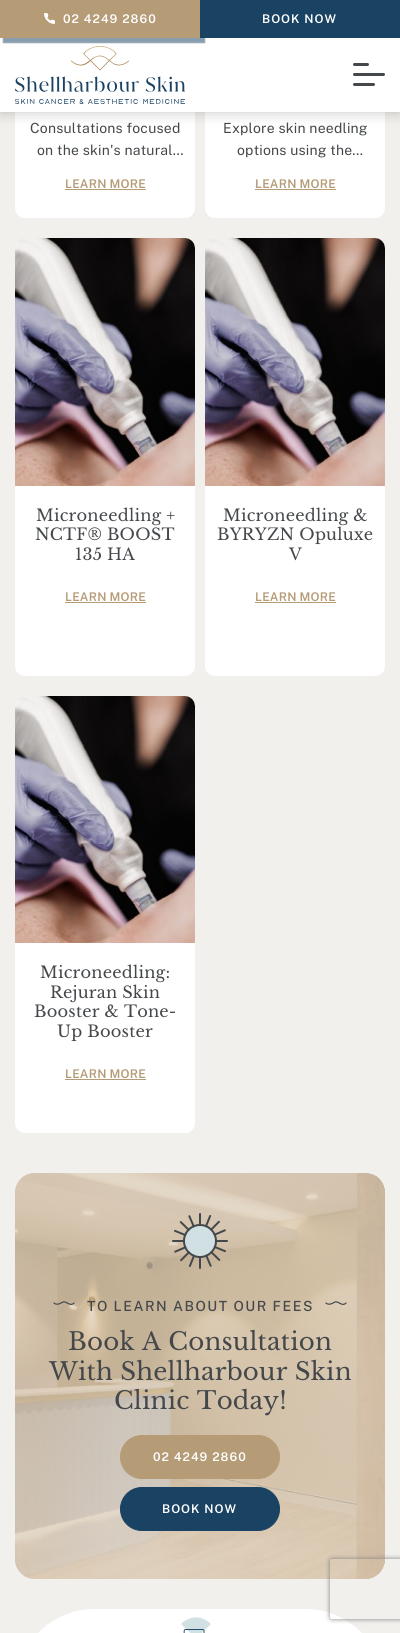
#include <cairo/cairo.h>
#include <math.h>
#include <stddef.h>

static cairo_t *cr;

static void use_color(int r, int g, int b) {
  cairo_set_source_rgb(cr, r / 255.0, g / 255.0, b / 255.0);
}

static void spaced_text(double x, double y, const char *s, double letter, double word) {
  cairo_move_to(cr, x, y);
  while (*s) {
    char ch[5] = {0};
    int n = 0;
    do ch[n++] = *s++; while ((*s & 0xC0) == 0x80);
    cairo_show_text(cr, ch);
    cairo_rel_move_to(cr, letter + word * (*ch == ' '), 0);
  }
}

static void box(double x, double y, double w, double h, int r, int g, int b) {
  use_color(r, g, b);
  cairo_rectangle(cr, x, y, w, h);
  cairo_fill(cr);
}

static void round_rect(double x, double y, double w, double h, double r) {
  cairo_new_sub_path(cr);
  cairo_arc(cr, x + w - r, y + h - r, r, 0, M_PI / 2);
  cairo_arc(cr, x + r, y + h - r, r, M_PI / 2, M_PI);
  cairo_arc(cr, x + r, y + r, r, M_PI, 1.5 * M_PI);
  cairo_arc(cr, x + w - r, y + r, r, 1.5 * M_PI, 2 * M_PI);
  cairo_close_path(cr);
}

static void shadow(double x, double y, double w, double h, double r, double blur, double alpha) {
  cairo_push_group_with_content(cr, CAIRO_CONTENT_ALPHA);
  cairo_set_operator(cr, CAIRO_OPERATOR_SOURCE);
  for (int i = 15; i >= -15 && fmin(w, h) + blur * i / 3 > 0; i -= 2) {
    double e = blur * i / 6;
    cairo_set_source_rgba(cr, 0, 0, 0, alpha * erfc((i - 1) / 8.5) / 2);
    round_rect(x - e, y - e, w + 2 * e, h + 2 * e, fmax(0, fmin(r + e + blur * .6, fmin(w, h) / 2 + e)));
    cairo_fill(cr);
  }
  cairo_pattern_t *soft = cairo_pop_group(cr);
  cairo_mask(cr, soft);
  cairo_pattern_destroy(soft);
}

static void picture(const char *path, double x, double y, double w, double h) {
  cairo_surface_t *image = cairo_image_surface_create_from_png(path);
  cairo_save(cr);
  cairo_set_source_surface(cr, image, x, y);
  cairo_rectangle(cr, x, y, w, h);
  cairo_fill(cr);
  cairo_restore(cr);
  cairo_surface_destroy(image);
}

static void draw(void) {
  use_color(242, 240, 237);
  cairo_paint(cr);
  use_color(255, 255, 255);
  cairo_new_path(cr);
  cairo_move_to(cr, 15, 28);
  cairo_line_to(cr, 195, 28);
  cairo_line_to(cr, 195, 208);
  cairo_curve_to(cr, 195, 213.5, 190.5, 218, 185, 218);
  cairo_line_to(cr, 25, 218);
  cairo_curve_to(cr, 19.5, 218, 15, 213.5, 15, 208);
  cairo_close_path(cr);
  cairo_fill(cr);
  cairo_new_path(cr);
  cairo_move_to(cr, 205, 28);
  cairo_line_to(cr, 385, 28);
  cairo_line_to(cr, 385, 208);
  cairo_curve_to(cr, 385, 213.5, 380.5, 218, 375, 218);
  cairo_line_to(cr, 215, 218);
  cairo_curve_to(cr, 209.5, 218, 205, 213.5, 205, 208);
  cairo_close_path(cr);
  cairo_fill(cr);
  use_color(0, 0, 0);
  shadow(0, 0, 400, 112, 0, 7.5, 0.23);
  box(0, 38, 400, 74, 255, 255, 255);
  use_color(26, 66, 99);
  shadow(3, 3, 202, 40, 0, 0.5, 0.52);
  box(0, 0, 200, 38, 181, 155, 118);
  picture("img_01.png", 44, 13, 11, 11);
  box(200, 0, 200, 38, 26, 66, 99);
  picture("img_02.png", 15, 46, 170, 58);
  use_color(69, 72, 75);
  round_rect(353, 73, 32, 3, 1.5);
  cairo_fill(cr);
  round_rect(353, 63, 16, 3, 1.5);
  cairo_fill(cr);
  round_rect(353, 83, 22, 3, 1.5);
  cairo_fill(cr);
  box(65, 189, 81, 1, 181, 155, 118);
  box(255, 189, 81, 1, 181, 155, 118);
  picture("img_03.png", 15, 238, 180, 248);
  use_color(255, 255, 255);
  cairo_new_path(cr);
  cairo_move_to(cr, 15, 486);
  cairo_line_to(cr, 195, 486);
  cairo_line_to(cr, 195, 666);
  cairo_curve_to(cr, 195, 671.5, 190.5, 676, 185, 676);
  cairo_line_to(cr, 25, 676);
  cairo_curve_to(cr, 19.5, 676, 15, 671.5, 15, 666);
  cairo_close_path(cr);
  cairo_fill(cr);
  box(65, 602, 81, 1, 181, 155, 118);
  picture("img_04.png", 205, 238, 180, 248);
  use_color(255, 255, 255);
  cairo_new_path(cr);
  cairo_move_to(cr, 205, 486);
  cairo_line_to(cr, 385, 486);
  cairo_line_to(cr, 385, 666);
  cairo_curve_to(cr, 385, 671.5, 380.5, 676, 375, 676);
  cairo_line_to(cr, 215, 676);
  cairo_curve_to(cr, 209.5, 676, 205, 671.5, 205, 666);
  cairo_close_path(cr);
  cairo_fill(cr);
  box(255, 602, 81, 1, 181, 155, 118);
  picture("img_05.png", 15, 696, 180, 247);
  use_color(255, 255, 255);
  cairo_new_path(cr);
  cairo_move_to(cr, 15, 943);
  cairo_line_to(cr, 195, 943);
  cairo_line_to(cr, 195, 1123);
  cairo_curve_to(cr, 195, 1128.5, 190.5, 1133, 185, 1133);
  cairo_line_to(cr, 25, 1133);
  cairo_curve_to(cr, 19.5, 1133, 15, 1128.5, 15, 1123);
  cairo_close_path(cr);
  cairo_fill(cr);
  box(65, 1079, 81, 1, 181, 155, 118);
  picture("img_06.png", 15, 1173, 370, 406);
  cairo_set_source_rgba(cr, 0.851, 0.788, 0.698, 0.7);
  round_rect(15, 1173, 370, 406, 20);
  cairo_fill(cr);
  picture("img_07.png", 172, 1213, 56, 56);
  cairo_new_path(cr);
  cairo_move_to(cr, 74, 1303);
  cairo_curve_to(cr, 70, 1307, 67, 1301, 63, 1302);
  cairo_line_to(cr, 60, 1303.5);
  cairo_curve_to(cr, 58, 1304.5, 55.5, 1304.5, 54, 1303);
  use_color(69, 72, 75);
  cairo_set_line_width(cr, 1.2);
  cairo_set_line_cap(cr, CAIRO_LINE_CAP_ROUND);
  cairo_set_line_join(cr, CAIRO_LINE_JOIN_ROUND);
  cairo_stroke(cr);
  cairo_new_path(cr);
  cairo_move_to(cr, 346, 1303);
  cairo_curve_to(cr, 342, 1307, 339, 1301, 335, 1302);
  cairo_line_to(cr, 332, 1303.5);
  cairo_curve_to(cr, 330, 1304.5, 327.5, 1304.5, 326, 1303);
  cairo_stroke(cr);
  use_color(181, 155, 118);
  round_rect(120.5, 1435.5, 159, 43, 21.5);
  cairo_fill_preserve(cr);
  cairo_set_line_width(cr, 1);
  cairo_set_line_cap(cr, CAIRO_LINE_CAP_BUTT);
  cairo_set_line_join(cr, CAIRO_LINE_JOIN_MITER);
  cairo_stroke(cr);
  use_color(26, 66, 99);
  round_rect(120.5, 1487.5, 159, 43, 21.5);
  cairo_fill_preserve(cr);
  cairo_stroke(cr);
  use_color(255, 255, 255);
  round_rect(15, 1609, 370, 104, 80);
  cairo_fill(cr);
  use_color(209, 224, 227);
  cairo_new_path(cr);
  cairo_move_to(cr, 196, 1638.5);
  cairo_line_to(cr, 181, 1624);
  cairo_curve_to(cr, 181, 1624, 195, 1609, 211, 1624);
  cairo_close_path(cr);
  cairo_fill(cr);
  picture("img_08.png", 183, 1629, 22, 4);
  cairo_save(cr);
  cairo_set_fill_rule(cr, CAIRO_FILL_RULE_EVEN_ODD);
  cairo_new_path(cr);
  cairo_move_to(cr, 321, 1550);
  cairo_line_to(cr, 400, 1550);
  cairo_line_to(cr, 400, 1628);
  cairo_line_to(cr, 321, 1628);
  cairo_close_path(cr);
  cairo_move_to(cr, 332, 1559);
  cairo_line_to(cr, 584, 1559);
  cairo_curve_to(cr, 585, 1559, 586, 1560, 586, 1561);
  cairo_line_to(cr, 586, 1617);
  cairo_curve_to(cr, 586, 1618, 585, 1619, 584, 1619);
  cairo_line_to(cr, 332, 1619);
  cairo_curve_to(cr, 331, 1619, 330, 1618, 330, 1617);
  cairo_line_to(cr, 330, 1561);
  cairo_curve_to(cr, 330, 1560, 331, 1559, 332, 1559);
  cairo_close_path(cr);
  cairo_clip(cr);
  use_color(128, 128, 128);
  shadow(330, 1559, 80, 60, 2, 2.5, 1);
  cairo_restore(cr);
  cairo_select_font_face(cr, "Public Sans SemiBold", CAIRO_FONT_SLANT_NORMAL, CAIRO_FONT_WEIGHT_NORMAL);
  cairo_set_font_size(cr, 12);
  use_color(255, 255, 255);
  spaced_text(63, 23, "02 4249 2860", 1, 0);
  spaced_text(262, 23, "BOOK NOW", 1, 0);
  cairo_select_font_face(cr, "Public Sans", CAIRO_FONT_SLANT_NORMAL, CAIRO_FONT_WEIGHT_NORMAL);
  cairo_set_font_size(cr, 14);
  use_color(69, 72, 75);
  spaced_text(30, 133, "Consultations focused", 0.2, 0);
  spaced_text(37, 155, "on the skin's natural…", 0.2, 0);
  cairo_select_font_face(cr, "Public Sans SemiBold", CAIRO_FONT_SLANT_NORMAL, CAIRO_FONT_WEIGHT_NORMAL);
  cairo_set_font_size(cr, 12);
  use_color(181, 155, 118);
  spaced_text(65, 188, "LEARN MORE", 0.2, 0);
  cairo_select_font_face(cr, "Public Sans", CAIRO_FONT_SLANT_NORMAL, CAIRO_FONT_WEIGHT_NORMAL);
  cairo_set_font_size(cr, 14);
  use_color(69, 72, 75);
  spaced_text(223, 133, "Explore skin needling", 0.2, 0);
  spaced_text(237, 155, "options using the…", 0.2, 0);
  cairo_select_font_face(cr, "Public Sans SemiBold", CAIRO_FONT_SLANT_NORMAL, CAIRO_FONT_WEIGHT_NORMAL);
  cairo_set_font_size(cr, 12);
  use_color(181, 155, 118);
  spaced_text(255, 188, "LEARN MORE", 0.2, 0);
  cairo_select_font_face(cr, "Libre Baskerville", CAIRO_FONT_SLANT_NORMAL, CAIRO_FONT_WEIGHT_NORMAL);
  cairo_set_font_size(cr, 16.25);
  use_color(69, 72, 75);
  spaced_text(36, 521, "Microneedling +", 0.2, 0);
  spaced_text(35, 540, "NCTF® BOOST", 0.2, 0);
  spaced_text(75, 560, "135 HA", 0.2, 0);
  cairo_select_font_face(cr, "Public Sans SemiBold", CAIRO_FONT_SLANT_NORMAL, CAIRO_FONT_WEIGHT_NORMAL);
  cairo_set_font_size(cr, 12);
  use_color(181, 155, 118);
  spaced_text(65, 601, "LEARN MORE", 0.2, 0);
  cairo_select_font_face(cr, "Libre Baskerville", CAIRO_FONT_SLANT_NORMAL, CAIRO_FONT_WEIGHT_NORMAL);
  cairo_set_font_size(cr, 16.25);
  use_color(69, 72, 75);
  spaced_text(223, 521, "Microneedling &", 0.2, 0);
  spaced_text(217, 540, "BYRYZN Opuluxe", 0.2, 0);
  spaced_text(289, 560, "V", 0.2, 0);
  cairo_select_font_face(cr, "Public Sans SemiBold", CAIRO_FONT_SLANT_NORMAL, CAIRO_FONT_WEIGHT_NORMAL);
  cairo_set_font_size(cr, 12);
  use_color(181, 155, 118);
  spaced_text(255, 601, "LEARN MORE", 0.2, 0);
  cairo_select_font_face(cr, "Libre Baskerville", CAIRO_FONT_SLANT_NORMAL, CAIRO_FONT_WEIGHT_NORMAL);
  cairo_set_font_size(cr, 16.25);
  use_color(69, 72, 75);
  spaced_text(40, 978, "Microneedling:", 0.2, 0);
  spaced_text(50, 998, "Rejuran Skin", 0.2, 0);
  spaced_text(34, 1017, "Booster & Tone-", 0.2, 0);
  spaced_text(57, 1037, "Up Booster", 0.2, 0);
  cairo_select_font_face(cr, "Public Sans SemiBold", CAIRO_FONT_SLANT_NORMAL, CAIRO_FONT_WEIGHT_NORMAL);
  cairo_set_font_size(cr, 12);
  use_color(181, 155, 118);
  spaced_text(65, 1078, "LEARN MORE", 0.2, 0);
  cairo_select_font_face(cr, "Public Sans Medium", CAIRO_FONT_SLANT_NORMAL, CAIRO_FONT_WEIGHT_NORMAL);
  cairo_set_font_size(cr, 14);
  use_color(69, 72, 75);
  spaced_text(87, 1311, "TO LEARN ABOUT OUR FEES", 1.5, 0);
  cairo_select_font_face(cr, "Libre Baskerville", CAIRO_FONT_SLANT_NORMAL, CAIRO_FONT_WEIGHT_NORMAL);
  cairo_set_font_size(cr, 24.5);
  spaced_text(68, 1350, "Book A Consultation", 0.2, 0);
  spaced_text(49, 1380, "With Shellharbour Skin", 0.2, 0);
  spaced_text(114, 1409, "Clinic Today!", 0.2, 0);
  cairo_select_font_face(cr, "Public Sans SemiBold", CAIRO_FONT_SLANT_NORMAL, CAIRO_FONT_WEIGHT_NORMAL);
  cairo_set_font_size(cr, 12);
  use_color(255, 255, 255);
  spaced_text(153, 1461, "02 4249 2860", 1, 0);
  spaced_text(162, 1513, "BOOK NOW", 1, 0);
}

int main(void) {
  cairo_surface_t *surface = cairo_image_surface_create(CAIRO_FORMAT_RGB24, 400, 1633);
  cr = cairo_create(surface);
  cairo_font_options_t *options = cairo_font_options_create();
  cairo_font_options_set_hint_metrics(options, CAIRO_HINT_METRICS_OFF);
  cairo_font_options_set_hint_style(options, CAIRO_HINT_STYLE_NONE);
  cairo_set_font_options(cr, options);
  cairo_set_miter_limit(cr, 4);
  draw();
  cairo_surface_write_to_png(surface, "out.png");
  cairo_font_options_destroy(options);
  cairo_destroy(cr);
  cairo_surface_destroy(surface);
  return 0;
}
